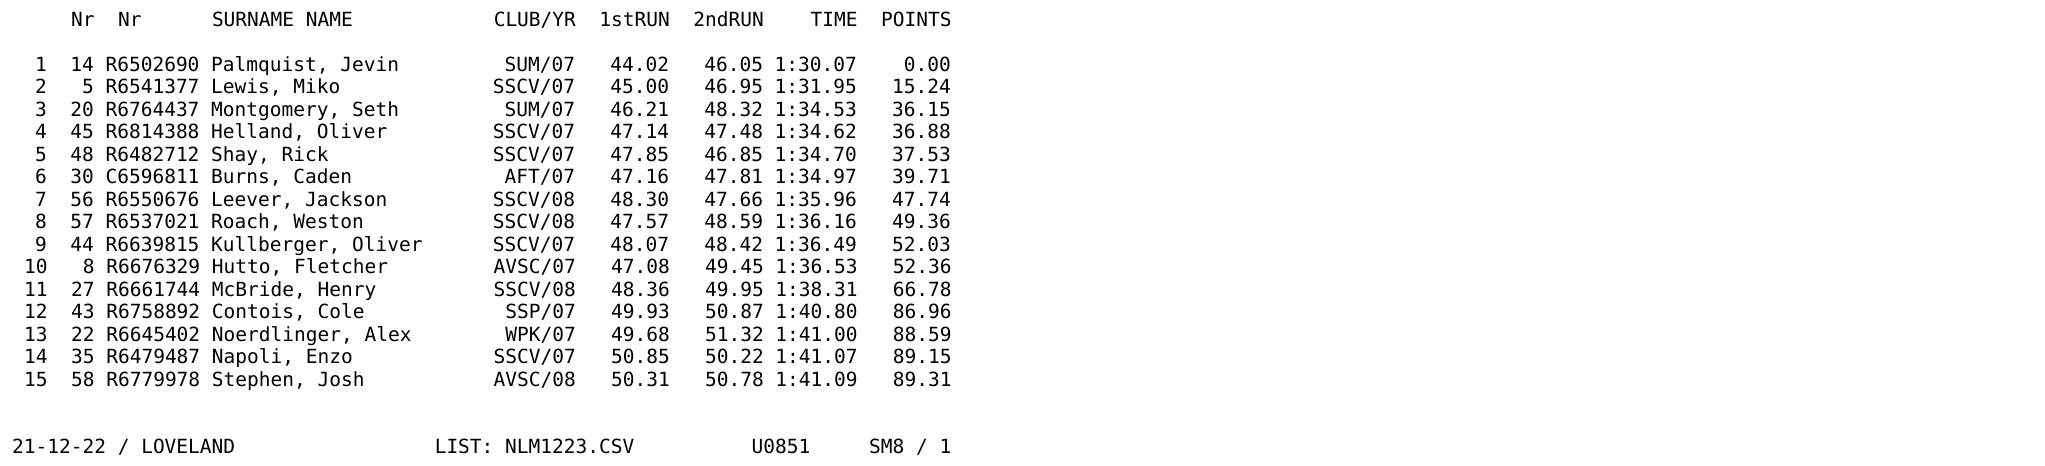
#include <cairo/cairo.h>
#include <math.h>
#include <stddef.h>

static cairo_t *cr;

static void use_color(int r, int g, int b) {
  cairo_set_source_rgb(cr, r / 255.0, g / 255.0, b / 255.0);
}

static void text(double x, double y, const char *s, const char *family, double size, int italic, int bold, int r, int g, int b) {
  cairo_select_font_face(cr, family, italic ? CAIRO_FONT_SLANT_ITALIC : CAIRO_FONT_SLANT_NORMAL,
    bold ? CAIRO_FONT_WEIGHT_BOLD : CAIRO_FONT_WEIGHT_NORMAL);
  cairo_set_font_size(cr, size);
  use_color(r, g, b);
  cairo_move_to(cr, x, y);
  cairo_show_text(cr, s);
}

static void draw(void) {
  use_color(255, 255, 255);
  cairo_paint(cr);
  text(71, 26, "Nr  Nr      SURNAME NAME            CLUB/YR  1stRUN  2ndRUN    TIME  POINTS", "DejaVu Sans Mono", 19.5, 0, 0, 0, 0, 0);
  text(35, 71, "1  14 R6502690 Palmquist, Jevin         SUM/07   44.02   46.05 1:30.07    0.00", "DejaVu Sans Mono", 19.5, 0, 0, 0, 0, 0);
  text(35, 93, "2   5 R6541377 Lewis, Miko             SSCV/07   45.00   46.95 1:31.95   15.24", "DejaVu Sans Mono", 19.5, 0, 0, 0, 0, 0);
  text(35, 116, "3  20 R6764437 Montgomery, Seth         SUM/07   46.21   48.32 1:34.53   36.15", "DejaVu Sans Mono", 19.5, 0, 0, 0, 0, 0);
  text(35, 138, "4  45 R6814388 Helland, Oliver         SSCV/07   47.14   47.48 1:34.62   36.88", "DejaVu Sans Mono", 19.5, 0, 0, 0, 0, 0);
  text(35, 161, "5  48 R6482712 Shay, Rick              SSCV/07   47.85   46.85 1:34.70   37.53", "DejaVu Sans Mono", 19.5, 0, 0, 0, 0, 0);
  text(35, 183, "6  30 C6596811 Burns, Caden             AFT/07   47.16   47.81 1:34.97   39.71", "DejaVu Sans Mono", 19.5, 0, 0, 0, 0, 0);
  text(35, 206, "7  56 R6550676 Leever, Jackson         SSCV/08   48.30   47.66 1:35.96   47.74", "DejaVu Sans Mono", 19.5, 0, 0, 0, 0, 0);
  text(35, 228, "8  57 R6537021 Roach, Weston           SSCV/08   47.57   48.59 1:36.16   49.36", "DejaVu Sans Mono", 19.5, 0, 0, 0, 0, 0);
  text(35, 251, "9  44 R6639815 Kullberger, Oliver      SSCV/07   48.07   48.42 1:36.49   52.03", "DejaVu Sans Mono", 19.5, 0, 0, 0, 0, 0);
  text(24, 273, "10   8 R6676329 Hutto, Fletcher         AVSC/07   47.08   49.45 1:36.53   52.36", "DejaVu Sans Mono", 19.5, 0, 0, 0, 0, 0);
  text(24, 296, "11  27 R6661744 McBride, Henry          SSCV/08   48.36   49.95 1:38.31   66.78", "DejaVu Sans Mono", 19.5, 0, 0, 0, 0, 0);
  text(24, 318, "12  43 R6758892 Contois, Cole            SSP/07   49.93   50.87 1:40.80   86.96", "DejaVu Sans Mono", 19.5, 0, 0, 0, 0, 0);
  text(24, 341, "13  22 R6645402 Noerdlinger, Alex        WPK/07   49.68   51.32 1:41.00   88.59", "DejaVu Sans Mono", 19.5, 0, 0, 0, 0, 0);
  text(24, 363, "14  35 R6479487 Napoli, Enzo            SSCV/07   50.85   50.22 1:41.07   89.15", "DejaVu Sans Mono", 19.5, 0, 0, 0, 0, 0);
  text(24, 386, "15  58 R6779978 Stephen, Josh           AVSC/08   50.31   50.78 1:41.09   89.31", "DejaVu Sans Mono", 19.5, 0, 0, 0, 0, 0);
  text(12, 453, "21-12-22 / LOVELAND                 LIST: NLM1223.CSV          U0851     SM8 / 1", "DejaVu Sans Mono", 19.5, 0, 0, 0, 0, 0);
}

int main(void) {
  cairo_surface_t *surface = cairo_image_surface_create(CAIRO_FORMAT_RGB24, 2045, 466);
  cr = cairo_create(surface);
  cairo_font_options_t *options = cairo_font_options_create();
  cairo_font_options_set_hint_metrics(options, CAIRO_HINT_METRICS_OFF);
  cairo_font_options_set_hint_style(options, CAIRO_HINT_STYLE_NONE);
  cairo_set_font_options(cr, options);
  cairo_set_miter_limit(cr, 4);
  draw();
  cairo_surface_write_to_png(surface, "out.png");
  cairo_font_options_destroy(options);
  cairo_destroy(cr);
  cairo_surface_destroy(surface);
  return 0;
}
